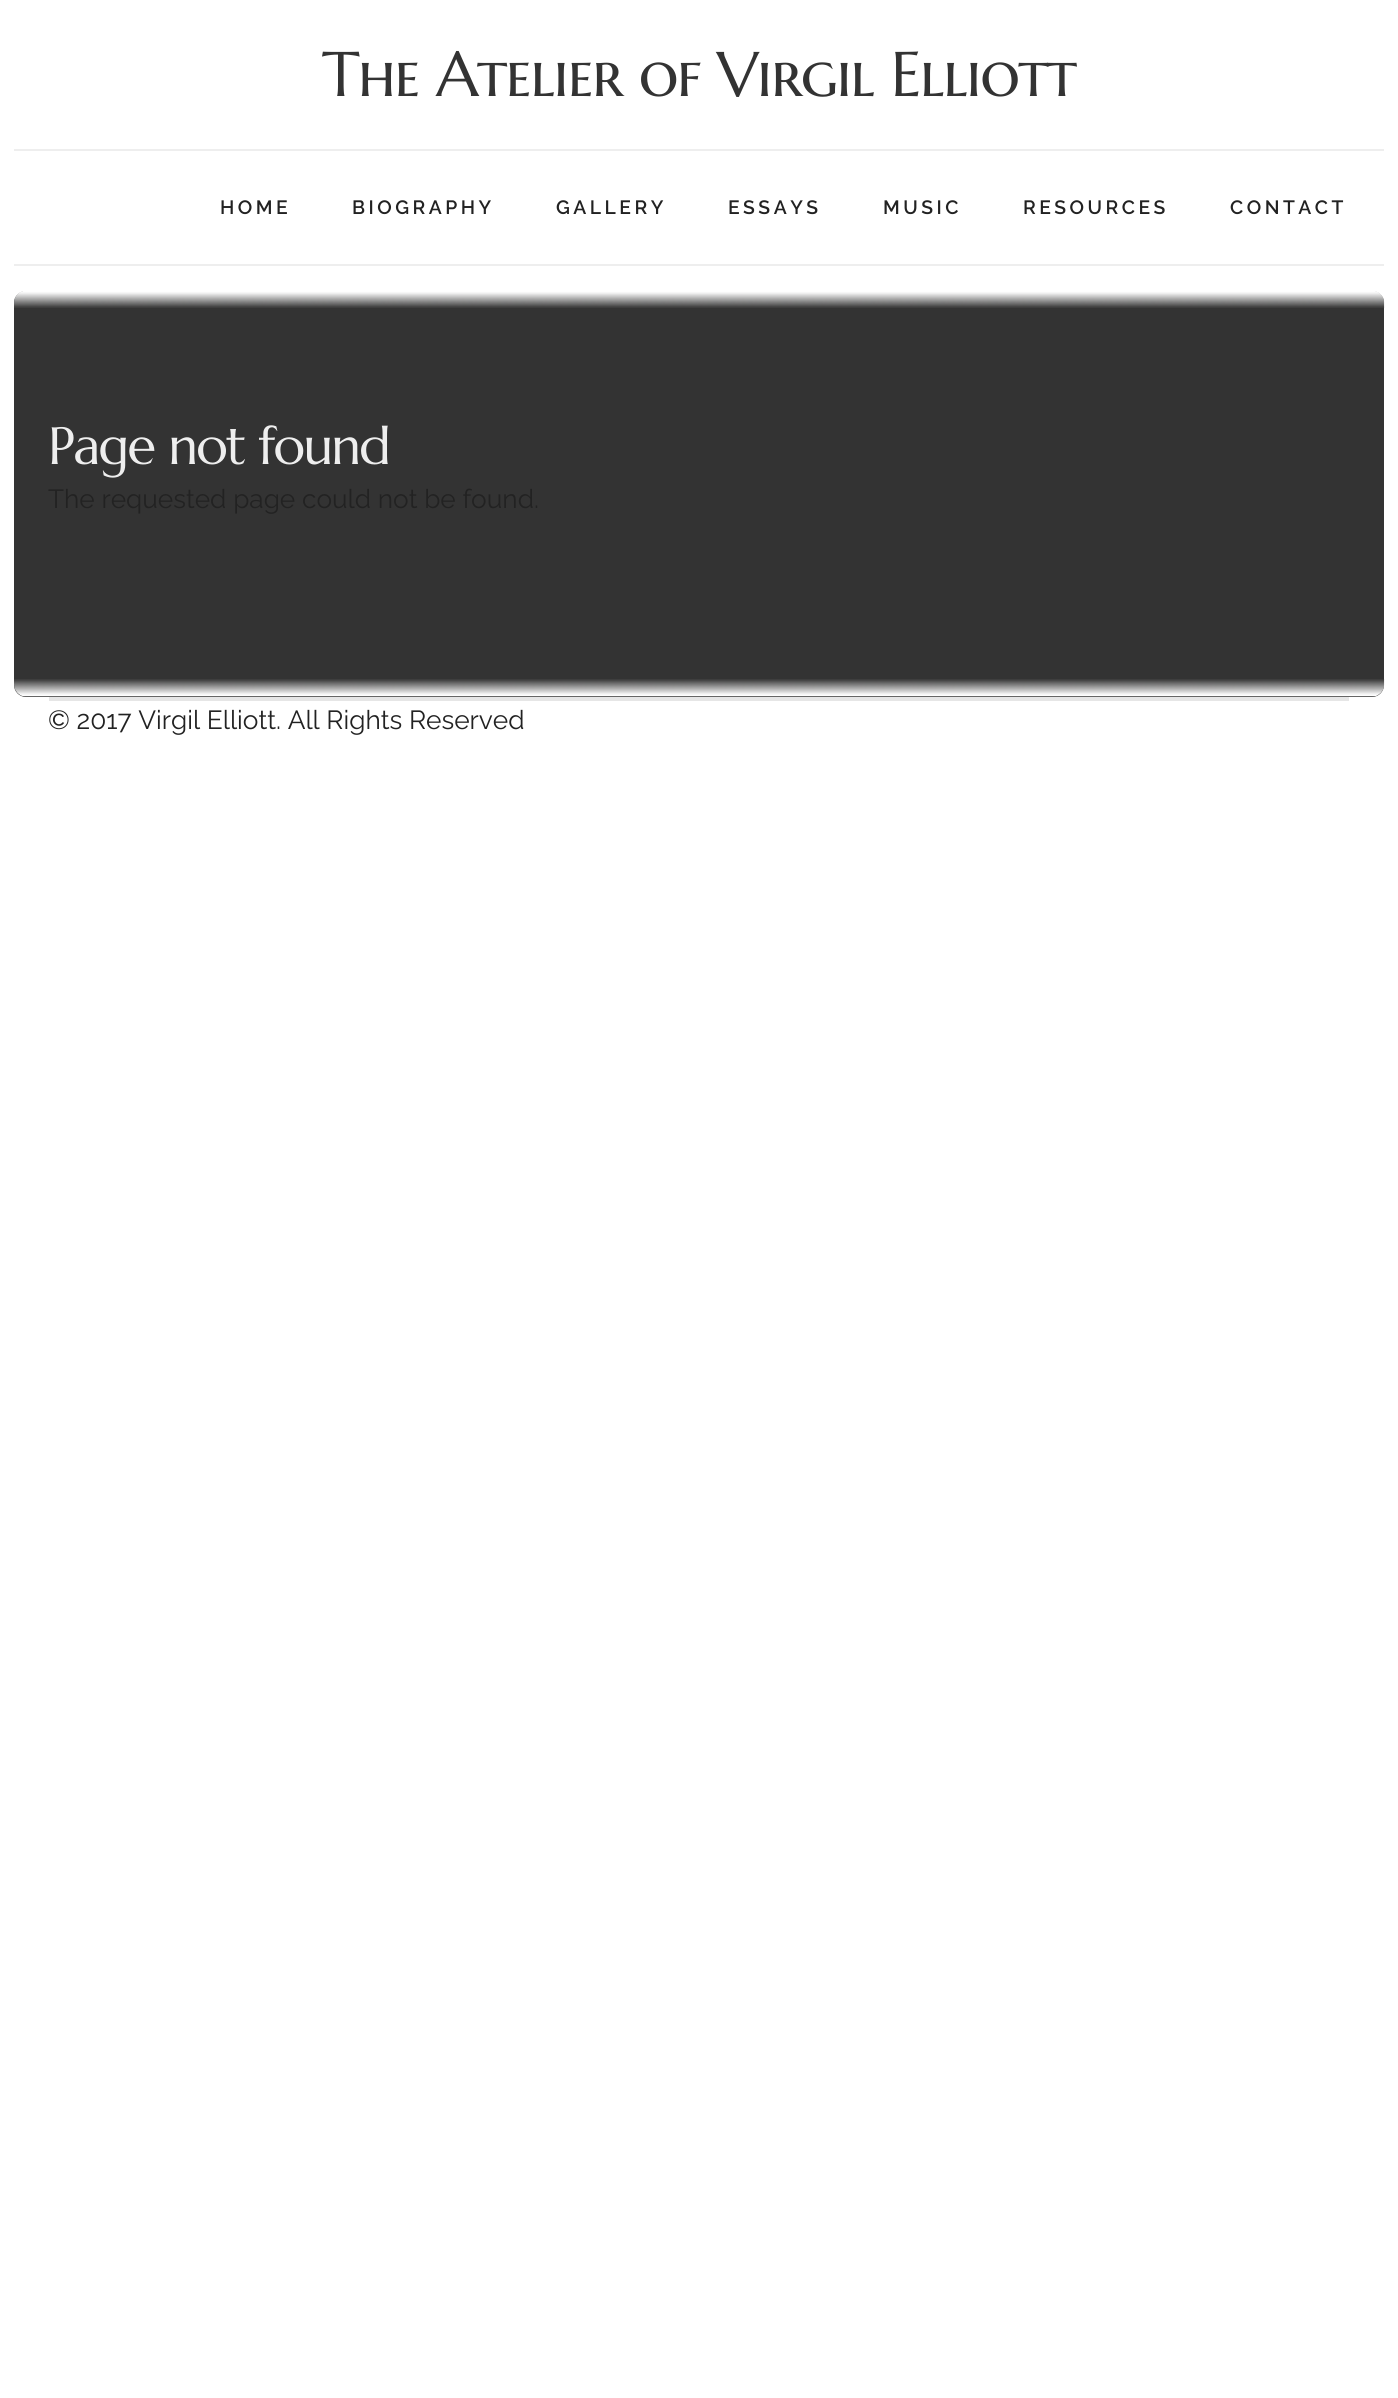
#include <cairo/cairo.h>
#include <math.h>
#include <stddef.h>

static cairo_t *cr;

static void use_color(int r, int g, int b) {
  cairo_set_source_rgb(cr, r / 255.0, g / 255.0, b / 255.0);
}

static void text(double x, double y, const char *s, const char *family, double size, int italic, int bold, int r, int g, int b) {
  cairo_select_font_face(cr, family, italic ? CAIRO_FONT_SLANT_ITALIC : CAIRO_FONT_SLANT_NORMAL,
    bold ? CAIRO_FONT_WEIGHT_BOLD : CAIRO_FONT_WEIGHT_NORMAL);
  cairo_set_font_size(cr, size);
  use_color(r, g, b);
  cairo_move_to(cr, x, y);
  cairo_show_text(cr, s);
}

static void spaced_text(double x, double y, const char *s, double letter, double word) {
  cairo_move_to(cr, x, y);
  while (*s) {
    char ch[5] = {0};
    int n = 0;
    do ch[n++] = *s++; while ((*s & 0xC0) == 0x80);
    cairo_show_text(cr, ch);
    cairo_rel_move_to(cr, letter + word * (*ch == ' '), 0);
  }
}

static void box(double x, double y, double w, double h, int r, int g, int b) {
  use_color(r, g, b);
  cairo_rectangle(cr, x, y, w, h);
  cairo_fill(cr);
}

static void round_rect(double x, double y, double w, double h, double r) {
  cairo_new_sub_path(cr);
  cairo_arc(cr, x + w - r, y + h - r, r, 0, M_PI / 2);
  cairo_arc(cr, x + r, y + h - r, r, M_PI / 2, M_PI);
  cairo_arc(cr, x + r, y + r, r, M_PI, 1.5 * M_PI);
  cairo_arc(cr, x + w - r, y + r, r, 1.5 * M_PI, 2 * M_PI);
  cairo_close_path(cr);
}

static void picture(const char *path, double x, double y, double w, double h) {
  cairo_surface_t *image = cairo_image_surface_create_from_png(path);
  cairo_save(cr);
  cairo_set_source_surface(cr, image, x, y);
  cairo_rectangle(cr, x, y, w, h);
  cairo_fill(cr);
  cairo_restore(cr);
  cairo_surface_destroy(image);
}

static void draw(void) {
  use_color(255, 255, 255);
  cairo_paint(cr);
  box(14, 149, 1370, 2, 238, 238, 238);
  box(14, 264, 1370, 2, 238, 238, 238);
  use_color(51, 51, 51);
  round_rect(14, 291, 1370, 406, 12);
  cairo_fill(cr);
  picture("img_01.png", 14, 291, 1371, 406);
  box(49, 697, 1300, 4, 230, 230, 230);
  cairo_select_font_face(cr, "Marcellus SC", CAIRO_FONT_SLANT_NORMAL, CAIRO_FONT_WEIGHT_NORMAL);
  cairo_set_font_size(cr, 63);
  use_color(51, 51, 51);
  spaced_text(322, 96, "The Atelier of Virgil Elliott", -1.75, 0);
  cairo_select_font_face(cr, "Raleway SemiBold", CAIRO_FONT_SLANT_NORMAL, CAIRO_FONT_WEIGHT_NORMAL);
  cairo_set_font_size(cr, 19.25);
  use_color(34, 34, 34);
  spaced_text(220, 214, "HOME", 3.5, 0);
  spaced_text(352, 214, "BIOGRAPHY", 3.5, 0);
  spaced_text(556, 214, "GALLERY", 3.5, 0);
  spaced_text(728, 214, "ESSAYS", 3.5, 0);
  spaced_text(883, 214, "MUSIC", 3.5, 0);
  spaced_text(1023, 214, "RESOURCES", 3.5, 0);
  spaced_text(1230, 214, "CONTACT", 3.5, 0);
  cairo_select_font_face(cr, "Marcellus", CAIRO_FONT_SLANT_NORMAL, CAIRO_FONT_WEIGHT_NORMAL);
  cairo_set_font_size(cr, 52.5);
  use_color(238, 238, 238);
  spaced_text(48, 464, "Page not found", -1.75, 0);
  text(48, 508, "The requested page could not be found.", "Raleway", 26.25, 0, 0, 34, 34, 34);
  text(48, 729, "© 2017 Virgil Elliott. All Rights Reserved", "Raleway", 26.25, 0, 0, 34, 34, 34);
}

int main(void) {
  cairo_surface_t *surface = cairo_image_surface_create(CAIRO_FORMAT_RGB24, 1398, 2398);
  cr = cairo_create(surface);
  cairo_font_options_t *options = cairo_font_options_create();
  cairo_font_options_set_hint_metrics(options, CAIRO_HINT_METRICS_OFF);
  cairo_font_options_set_hint_style(options, CAIRO_HINT_STYLE_NONE);
  cairo_set_font_options(cr, options);
  cairo_set_miter_limit(cr, 4);
  draw();
  cairo_surface_write_to_png(surface, "out.png");
  cairo_font_options_destroy(options);
  cairo_destroy(cr);
  cairo_surface_destroy(surface);
  return 0;
}
